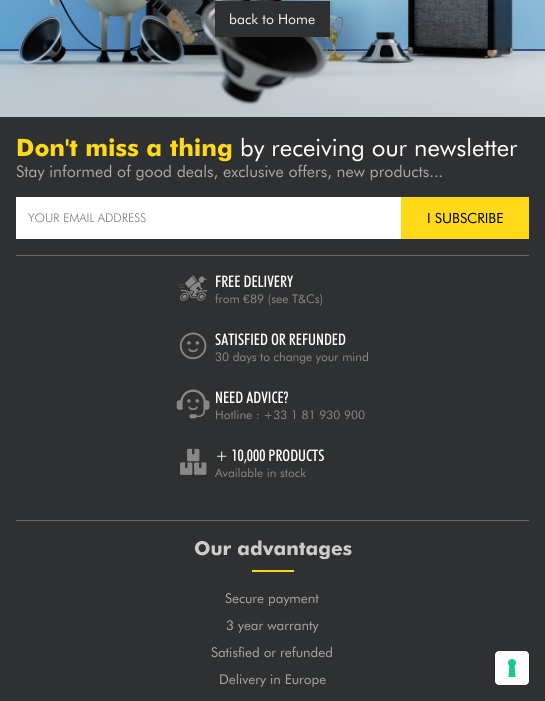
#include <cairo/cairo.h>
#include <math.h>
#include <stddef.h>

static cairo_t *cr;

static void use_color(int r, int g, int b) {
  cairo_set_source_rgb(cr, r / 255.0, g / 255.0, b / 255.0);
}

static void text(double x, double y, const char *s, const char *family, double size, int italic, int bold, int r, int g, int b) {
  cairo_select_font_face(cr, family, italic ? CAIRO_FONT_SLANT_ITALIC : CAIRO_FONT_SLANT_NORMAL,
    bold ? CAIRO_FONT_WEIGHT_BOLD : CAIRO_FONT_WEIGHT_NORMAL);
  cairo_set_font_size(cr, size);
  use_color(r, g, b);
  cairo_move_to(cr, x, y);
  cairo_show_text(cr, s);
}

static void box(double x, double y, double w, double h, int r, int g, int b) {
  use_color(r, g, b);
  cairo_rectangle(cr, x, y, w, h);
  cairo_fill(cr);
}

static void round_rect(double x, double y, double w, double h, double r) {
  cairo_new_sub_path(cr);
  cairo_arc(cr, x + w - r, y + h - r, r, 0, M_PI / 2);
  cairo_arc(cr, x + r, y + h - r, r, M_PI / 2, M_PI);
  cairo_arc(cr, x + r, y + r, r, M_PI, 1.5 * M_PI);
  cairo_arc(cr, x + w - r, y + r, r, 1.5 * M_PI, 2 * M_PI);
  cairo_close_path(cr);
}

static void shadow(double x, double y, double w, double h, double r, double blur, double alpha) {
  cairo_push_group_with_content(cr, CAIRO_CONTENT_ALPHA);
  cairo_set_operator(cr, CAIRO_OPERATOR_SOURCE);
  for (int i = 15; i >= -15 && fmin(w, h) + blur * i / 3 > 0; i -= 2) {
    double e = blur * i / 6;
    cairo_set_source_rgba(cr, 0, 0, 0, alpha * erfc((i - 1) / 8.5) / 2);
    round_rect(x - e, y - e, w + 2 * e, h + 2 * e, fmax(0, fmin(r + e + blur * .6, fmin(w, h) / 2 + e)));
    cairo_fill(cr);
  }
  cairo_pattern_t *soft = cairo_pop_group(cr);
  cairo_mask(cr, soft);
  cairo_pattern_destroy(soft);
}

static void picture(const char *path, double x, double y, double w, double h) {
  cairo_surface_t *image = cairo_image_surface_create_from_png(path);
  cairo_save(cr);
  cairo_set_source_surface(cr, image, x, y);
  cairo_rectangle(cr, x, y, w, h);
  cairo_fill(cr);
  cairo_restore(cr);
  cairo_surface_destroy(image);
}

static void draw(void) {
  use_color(255, 255, 255);
  cairo_paint(cr);
  picture("img_01.png", 0, 0, 545, 117);
  use_color(0, 0, 0);
  shadow(215, 1, 115, 36, 0, 2.5, 0.15);
  box(215, 1, 115, 36, 47, 48, 49);
  box(0, 117, 545, 584, 47, 48, 49);
  box(16, 197, 385, 42, 255, 255, 255);
  box(401, 197, 128, 42, 253, 217, 24);
  box(16, 255, 513, 1, 103, 103, 103);
  picture("img_02.png", 178, 275, 30, 26);
  picture("img_03.png", 179, 332, 28, 28);
  picture("img_04.png", 176, 389, 34, 30);
  picture("img_05.png", 180, 448, 27, 27);
  box(16, 520, 513, 1, 103, 103, 103);
  box(252, 570, 42, 2, 253, 217, 24);
  round_rect(494.5, 650.5, 35, 35, 4.5);
  use_color(40, 41, 42);
  cairo_set_line_width(cr, 1);
  cairo_stroke(cr);
  use_color(255, 255, 255);
  round_rect(495, 651, 34, 34, 4);
  cairo_fill(cr);
  picture("img_06.png", 508, 659, 8, 18);
  text(229, 24, "back to Home", "Futura", 14, 0, 0, 244, 244, 244);
  text(16, 156, "Don't miss a thing", "Futura", 24, 0, 1, 253, 217, 24);
  text(240, 156, "by receiving our newsletter", "Futura", 24, 0, 0, 255, 255, 255);
  text(16, 177, "Stay informed of good deals, exclusive offers, new products...", "Futura", 16, 0, 0, 168, 168, 168);
  text(28, 222, "YOUR EMAIL ADDRESS", "Futura Light", 12, 0, 0, 117, 117, 117);
  text(427, 223, "I SUBSCRIBE", "Futura", 14, 0, 0, 0, 0, 0);
  text(215, 287, "FREE DELIVERY", "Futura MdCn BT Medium", 16, 0, 0, 255, 255, 255);
  text(215, 303, "from", "Futura", 12, 0, 0, 136, 136, 136);
  text(243, 303, "€", "Liberation Sans", 12, 0, 0, 136, 136, 136);
  text(250, 303, "89 (see T&Cs)", "Futura", 12, 0, 0, 136, 136, 136);
  text(215, 345, "SATISFIED OR REFUNDED", "Futura MdCn BT Medium", 16, 0, 0, 255, 255, 255);
  text(215, 361, "30 days to change your mind", "Futura", 12, 0, 0, 136, 136, 136);
  text(215, 403, "NEED ADVICE?", "Futura MdCn BT Medium", 16, 0, 0, 255, 255, 255);
  text(215, 419, "Hotline : +33 1 81 930 900", "Futura", 12, 0, 0, 136, 136, 136);
  text(215, 461, "+ 10,000 PRODUCTS", "Futura MdCn BT Medium", 16, 0, 0, 255, 255, 255);
  text(215, 477, "Available in stock", "Futura", 12, 0, 0, 136, 136, 136);
  text(194, 555, "Our advantages", "Futura", 19.25, 0, 1, 205, 204, 204);
  text(225, 603, "Secure payment", "Futura", 13.5, 0, 0, 168, 168, 168);
  text(226, 630, "3 year warranty", "Futura", 13.5, 0, 0, 168, 168, 168);
  text(211, 657, "Satisfied or refunded", "Futura", 13.5, 0, 0, 168, 168, 168);
  text(219, 684, "Delivery in Europe", "Futura", 13.5, 0, 0, 168, 168, 168);
}

int main(void) {
  cairo_surface_t *surface = cairo_image_surface_create(CAIRO_FORMAT_RGB24, 545, 701);
  cr = cairo_create(surface);
  cairo_font_options_t *options = cairo_font_options_create();
  cairo_font_options_set_hint_metrics(options, CAIRO_HINT_METRICS_OFF);
  cairo_font_options_set_hint_style(options, CAIRO_HINT_STYLE_NONE);
  cairo_set_font_options(cr, options);
  cairo_set_miter_limit(cr, 4);
  draw();
  cairo_surface_write_to_png(surface, "out.png");
  cairo_font_options_destroy(options);
  cairo_destroy(cr);
  cairo_surface_destroy(surface);
  return 0;
}
